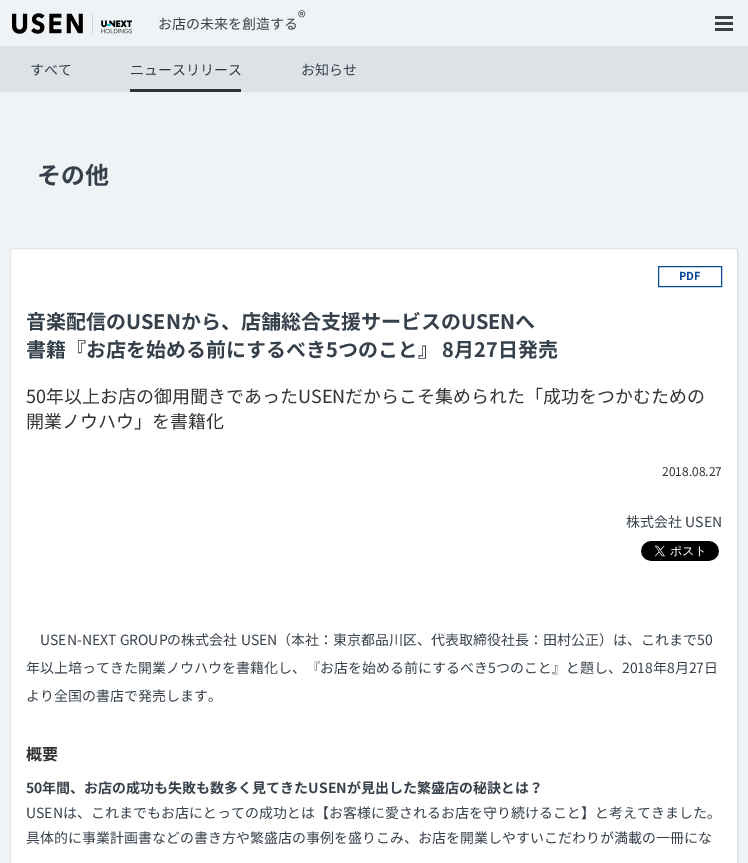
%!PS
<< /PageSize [748 863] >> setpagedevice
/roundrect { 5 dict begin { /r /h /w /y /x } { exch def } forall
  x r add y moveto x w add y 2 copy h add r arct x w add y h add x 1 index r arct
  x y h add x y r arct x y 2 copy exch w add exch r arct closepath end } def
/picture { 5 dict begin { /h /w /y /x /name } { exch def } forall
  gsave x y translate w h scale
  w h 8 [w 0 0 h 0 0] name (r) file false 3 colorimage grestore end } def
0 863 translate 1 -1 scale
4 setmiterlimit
0.941 0.953 0.961 setrgbcolor
0 0 748 863 rectfill
(img1.rgb) 12 13 120 21 picture
/NotoSansJP-Regular [16 0 0 -16 0 0] selectfont
0.212 0.251 0.294 setrgbcolor
298 23 moveto (®) show
/NotoSansJP-Regular [14 0 0 -14 0 0] selectfont
158 29 moveto (お店の未来を創造する) show
0.231 0.251 0.263 setrgbcolor
715 16 18 3 rectfill
715 22 18 3 rectfill
715 28 18 3 rectfill
0.867 0.886 0.906 setrgbcolor
0 46 748 46 rectfill
0.212 0.251 0.294 setrgbcolor
30 75 moveto (すべて) show
0.2 setgray
130 75 moveto (ニュースリリース) show
130 89 111 3 rectfill
0.212 0.251 0.294 setrgbcolor
301 75 moveto (お知らせ) show
/NotoSansJP-Bold [24 0 0 -24 0 0] selectfont
37 184 moveto (その他) show
1 setgray
10 248 728 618 3 roundrect fill
0.847 0.855 0.863 setrgbcolor
newpath 737 249 moveto 737.5 251 lineto 737.5 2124 lineto 737 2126 lineto 735 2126.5 lineto 13 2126.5 lineto 11 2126 lineto stroke
0.898 setgray
newpath 11 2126 moveto 10.5 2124 lineto 10.5 251 lineto 11 249 lineto 13 248.5 lineto 735 248.5 lineto 737 249 lineto stroke
0.031 0.298 0.588 setrgbcolor
658.5 266.5 63 20 rectstroke
/NotoSansJP-Bold [11 0 0 -11 0 0] selectfont
679 280 moveto (PDF) show
/NotoSansJP-Bold [20 0 0 -20 0 0] selectfont
0.212 0.251 0.294 setrgbcolor
26 329 moveto (音楽配信のUSENから、店舗総合支援サービスのUSENへ) show
26 357 moveto (書籍『お店を始める前にするべき5つのこと』 8月27日発売) show
/NotoSansJP-Regular [18 0 0 -18 0 0] selectfont
0.2 setgray
26 403 moveto (50年以上お店の御用聞きであったUSENだからこそ集められた「成功をつかむための) show
26 428 moveto (開業ノウハウ」を書籍化) show
/NotoSansJP-Regular [12 0 0 -12 0 0] selectfont
662 476 moveto (2018.08.27) show
/NotoSansJP-Regular [14 0 0 -14 0 0] selectfont
0.212 0.251 0.294 setrgbcolor
626 527 moveto (株式会社 USEN) show
(img2.rgb) 641 541 78 20 picture
40 645 moveto (USEN-NEXT GROUPの株式会社 USEN（本社：東京都品川区、代表取締役社長：田村公正）は、これまで50) show
26 673 moveto (年以上培ってきた開業ノウハウを書籍化し、『お店を始める前にするべき5つのこと』と題し、2018年8月27日) show
26 701 moveto (より全国の書店で発売します。) show
/NotoSansJP-Bold [16 0 0 -16 0 0] selectfont
0.2 setgray
26 760 moveto (概要) show
/NotoSansJP-Bold [14 0 0 -14 0 0] selectfont
0.212 0.251 0.294 setrgbcolor
26 793 moveto (50年間、お店の成功も失敗も数多く見てきたUSENが見出した繁盛店の秘訣とは？) show
/NotoSansJP-Regular [14 0 0 -14 0 0] selectfont
26 818 moveto (USENは、これまでもお店にとっての成功とは【お客様に愛されるお店を守り続けること】と考えてきました。) show
26 843 moveto (具体的に事業計画書などの書き方や繁盛店の事例を盛りこみ、お店を開業しやすいこだわりが満載の一冊にな) show
showpage
